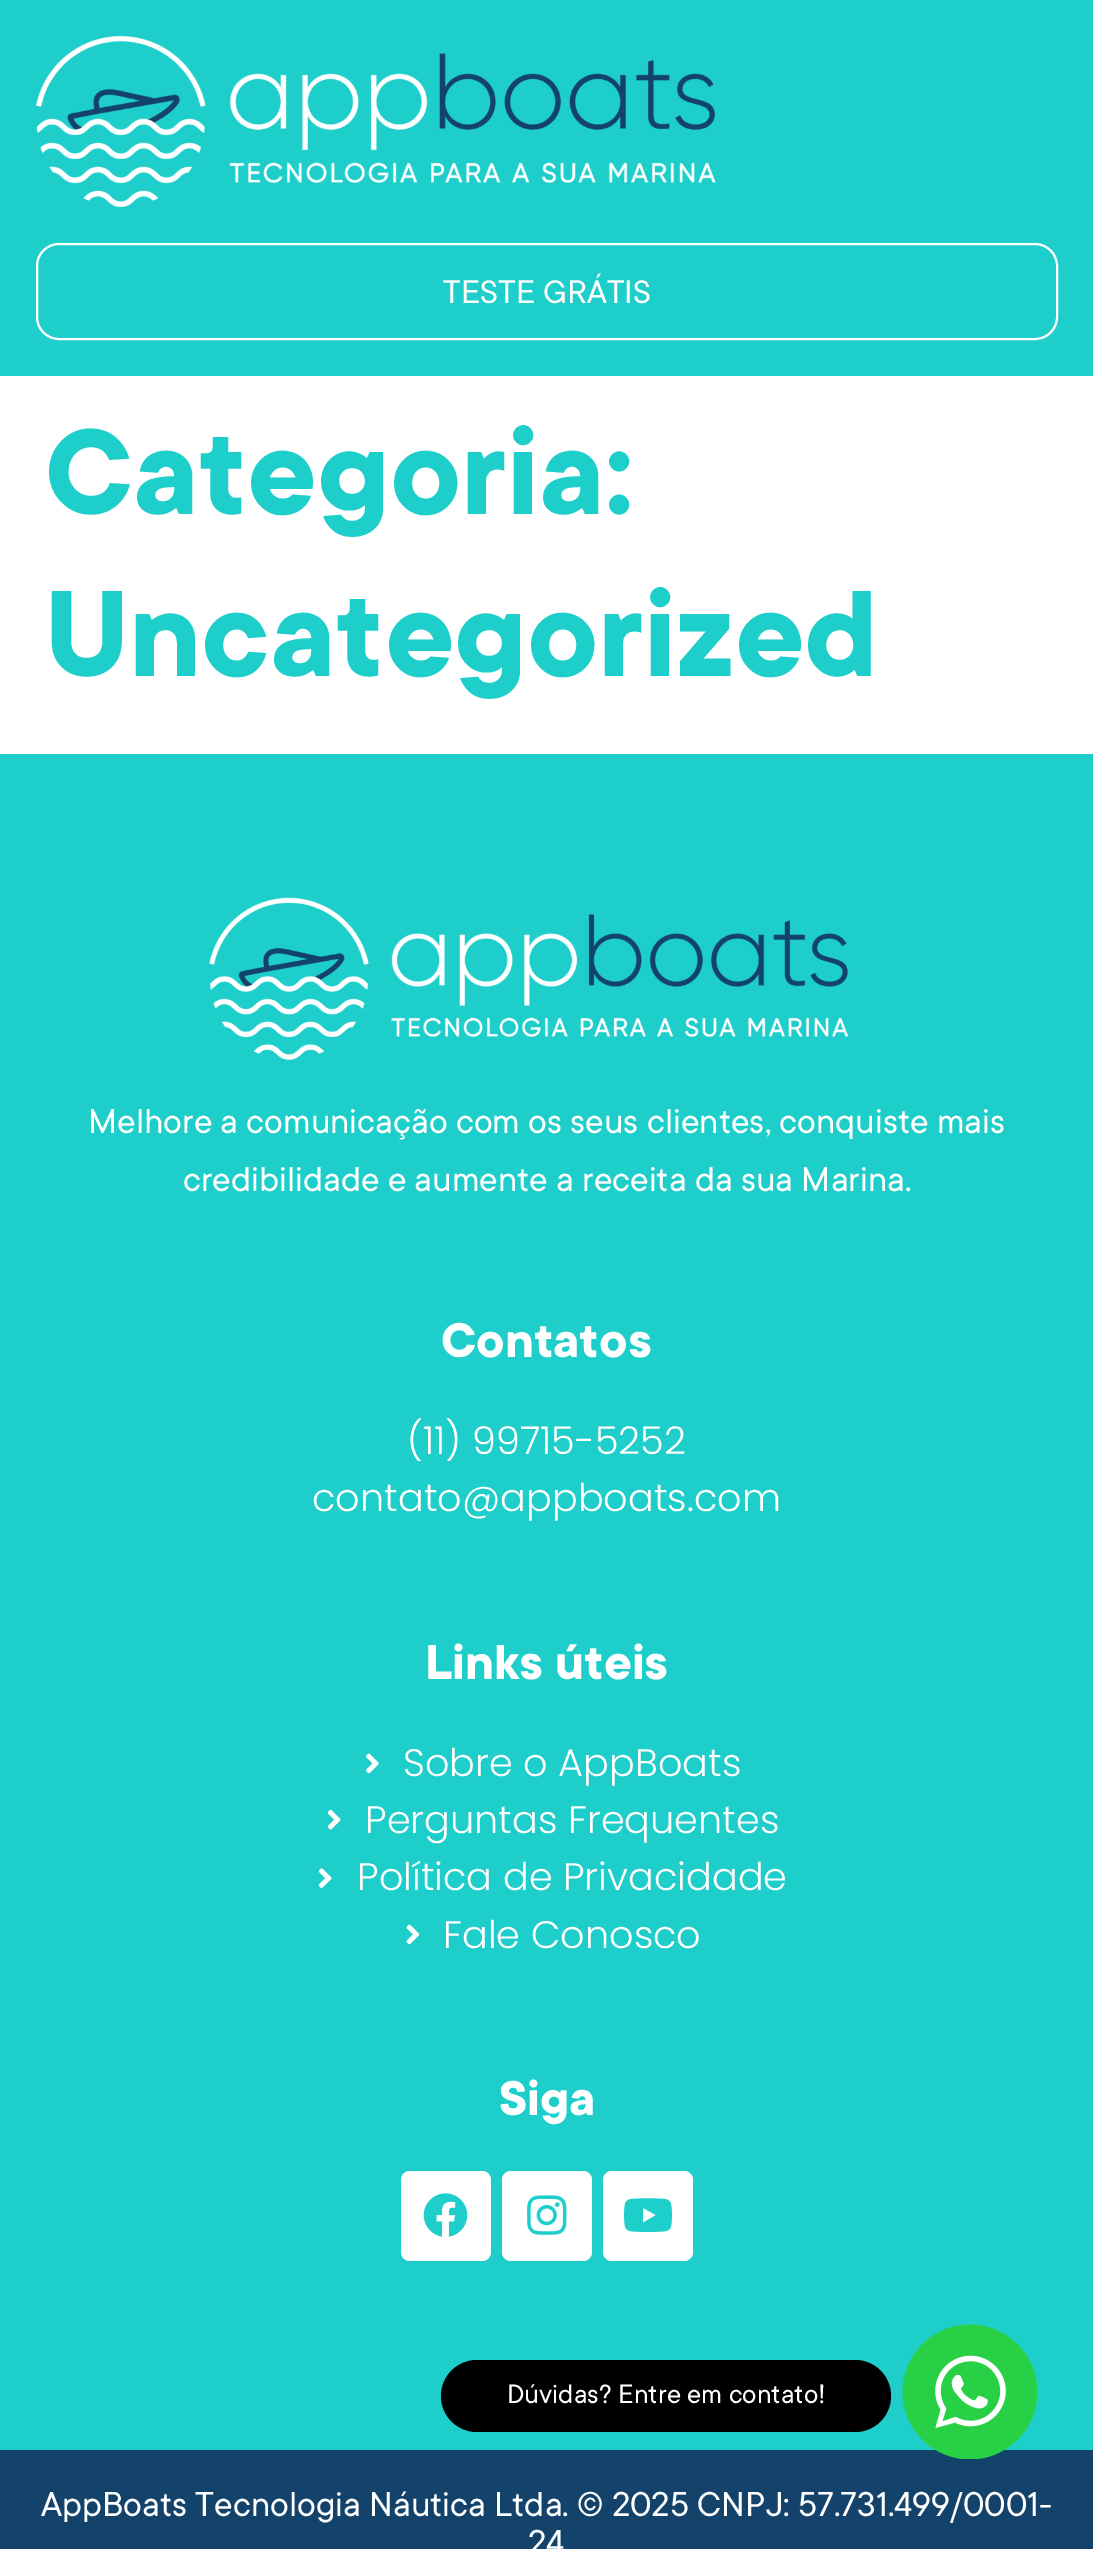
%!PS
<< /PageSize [1093 2549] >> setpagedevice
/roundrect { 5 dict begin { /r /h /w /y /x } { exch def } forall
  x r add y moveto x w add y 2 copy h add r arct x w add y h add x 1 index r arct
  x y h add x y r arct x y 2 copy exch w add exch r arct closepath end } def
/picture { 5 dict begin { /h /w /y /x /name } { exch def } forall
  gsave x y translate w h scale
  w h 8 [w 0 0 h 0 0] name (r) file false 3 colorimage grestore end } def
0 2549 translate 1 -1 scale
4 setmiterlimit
1 setgray
0 0 1093 2549 rectfill
0.118 0.808 0.792 setrgbcolor
0 0 1093 376 rectfill
(img1.rgb) 36 36 680 171 picture
1 setgray
2 setlinewidth
37 244 1020 95 22 roundrect stroke
/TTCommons-Regular [36 0 0 -36 0 0] selectfont
443 303 moveto (TESTE GRÁTIS) show
/TTCommons-Bold [135 0 0 -135 0 0] selectfont
0.118 0.808 0.792 setrgbcolor
45 514 moveto (Categoria:) show
45 676 moveto (Uncategorized) show
0 754 1093 1696 rectfill
(img2.rgb) 209 897 640 163 picture
/TTCommons-Regular [38.25 0 0 -38.25 0 0] selectfont
1 setgray
88 1133 moveto (Melhore a comunicação com os seus clientes, conquiste mais) show
183 1191 moveto (credibilidade e aumente a receita da sua Marina.) show
/TTCommons-Bold [54 0 0 -54 0 0] selectfont
441 1357 moveto (Contatos) show
/Poppins-Light [38.25 0 0 -38.25 0 0] selectfont
407 1454 moveto (\(11\) 99715-5252) show
312 1511 moveto (contato@appboats.com) show
/TTCommons-Bold [54 0 0 -54 0 0] selectfont
425 1679 moveto (Links úteis) show
(img3.rgb) 366 1753 13 21 picture
/Poppins-Light [38.25 0 0 -38.25 0 0] selectfont
403 1776 moveto (Sobre o AppBoats) show
(img4.rgb) 327 1809 14 21 picture
365 1833 moveto (Perguntas Frequentes) show
(img5.rgb) 318 1868 14 20 picture
357 1890 moveto (Política de Privacidade) show
(img6.rgb) 406 1924 14 21 picture
443 1948 moveto (Fale Conosco) show
/TTCommons-Bold [54 0 0 -54 0 0] selectfont
499 2115 moveto (Siga) show
401 2171 90 90 9 roundrect fill
(img7.rgb) 423 2193 45 44 picture
502 2171 90 90 9 roundrect fill
(img8.rgb) 527 2195 40 40 picture
603 2171 90 90 9 roundrect fill
(img9.rgb) 624 2198 48 34 picture
0 setgray
441 2360 450 72 36 roundrect fill
/TTCommons-Regular [29.25 0 0 -29.25 0 0] selectfont
1 setgray
507 2403 moveto (Dúvidas? Entre em contato!) show
0.075 0.259 0.42 setrgbcolor
0 2450 1093 99 rectfill
(img10.rgb) 902 2324 135 135 picture
/TTCommons-Regular [38.25 0 0 -38.25 0 0] selectfont
1 setgray
41 2516 moveto (AppBoats Tecnologia Náutica Ltda. © 2025 CNPJ: 57.731.499/0001-) show
528 2554 moveto (24) show
showpage
